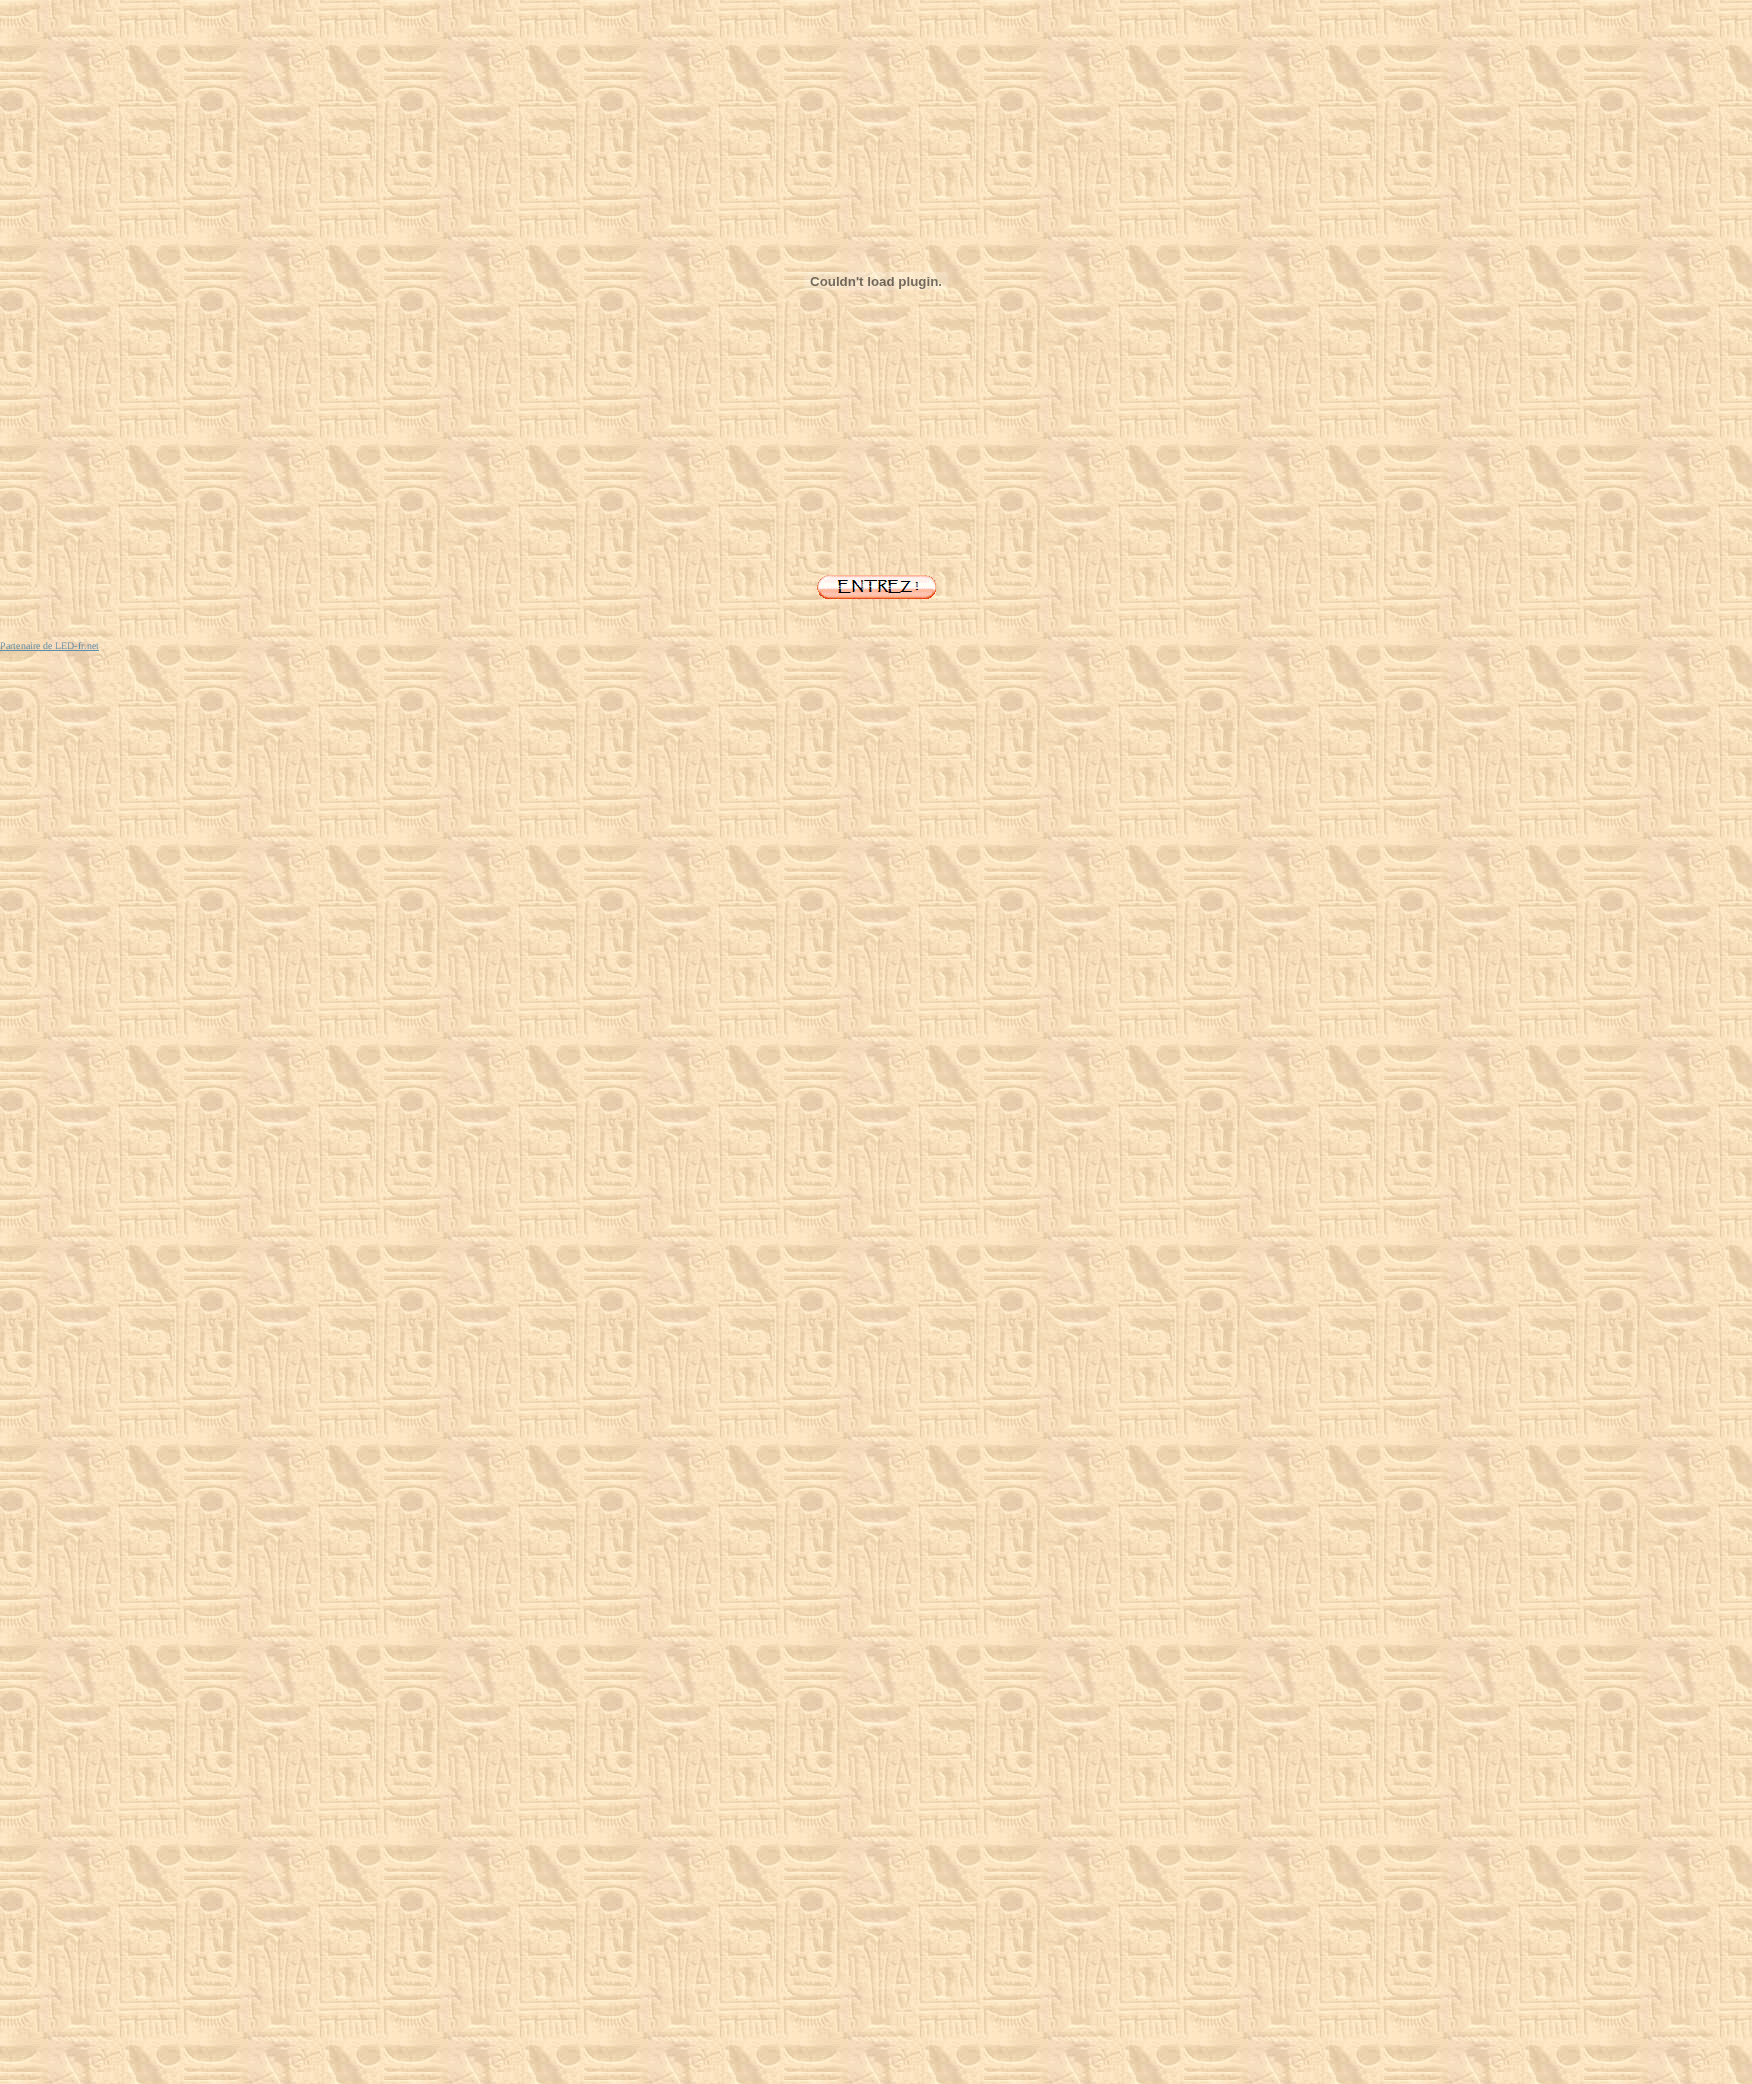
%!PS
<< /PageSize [1752 2084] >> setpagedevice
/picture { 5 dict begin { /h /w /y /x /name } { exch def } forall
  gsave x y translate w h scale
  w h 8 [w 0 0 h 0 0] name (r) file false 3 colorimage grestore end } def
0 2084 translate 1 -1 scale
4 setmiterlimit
1 setgray
0 0 1752 2084 rectfill
(img1.rgb) 0 0 1752 2084 picture
(img2.rgb) 804 272 144 18 picture
(img3.rgb) 817 575 119 24 picture
/LiberationSerif-Regular [10 0 0 -10 0 0] selectfont
0.373 0.557 0.663 setrgbcolor
0 649 moveto (Partenaire de LED-fr.net) show
0 650 99 1 rectfill
showpage
